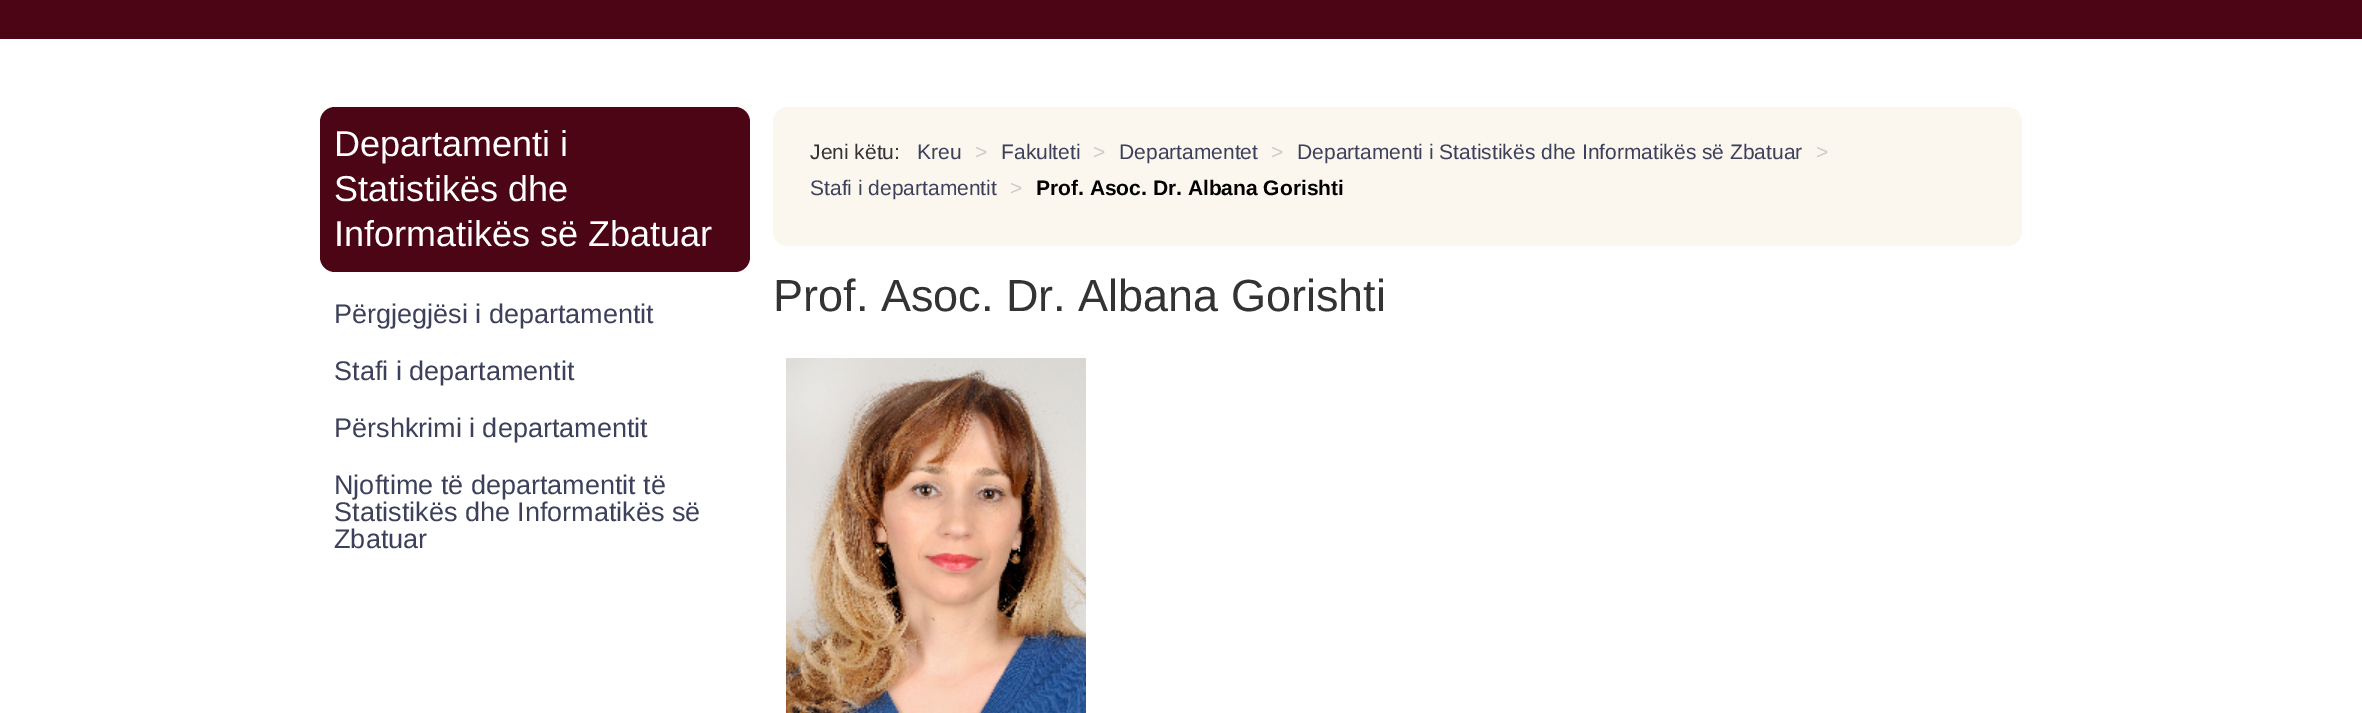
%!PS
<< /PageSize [2362 713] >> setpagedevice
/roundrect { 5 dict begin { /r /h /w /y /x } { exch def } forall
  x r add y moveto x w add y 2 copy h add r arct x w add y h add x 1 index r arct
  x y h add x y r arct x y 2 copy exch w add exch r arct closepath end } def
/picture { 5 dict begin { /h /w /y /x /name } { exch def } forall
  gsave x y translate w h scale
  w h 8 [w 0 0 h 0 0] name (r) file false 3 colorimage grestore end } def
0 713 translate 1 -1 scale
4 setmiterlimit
1 setgray
0 0 2362 713 rectfill
0.298 0.02 0.078 setrgbcolor
0 0 2362 39 rectfill
320 107 430 165 15 roundrect fill
/LiberationSans-Regular [36 0 0 -36 0 0] selectfont
1 setgray
334 156 moveto (Departamenti i) show
334 201 moveto (Statistikës dhe) show
334 246 moveto (Informatikës së Zbatuar) show
/LiberationSans-Regular [27 0 0 -27 0 0] selectfont
0.239 0.251 0.357 setrgbcolor
334 323 moveto (Përgjegjësi i departamentit) show
334 380 moveto (Stafi i departamentit) show
334 437 moveto (Përshkrimi i departamentit) show
334 494 moveto (Njoftime të departamentit të) show
334 521 moveto (Statistikës dhe Informatikës së) show
334 548 moveto (Zbatuar) show
0.988 0.969 0.933 setrgbcolor
773 107 1249 139 15 roundrect fill
/LiberationSans-Regular [21 0 0 -21 0 0] selectfont
0.2 setgray
810 159 moveto (Jeni këtu:) show
0.239 0.251 0.357 setrgbcolor
917 159 moveto (Kreu) show
0.8 setgray
975 159 moveto (>) show
0.239 0.251 0.357 setrgbcolor
1001 159 moveto (Fakulteti) show
0.8 setgray
1093 159 moveto (>) show
0.239 0.251 0.357 setrgbcolor
1119 159 moveto (Departamentet) show
0.8 setgray
1271 159 moveto (>) show
0.239 0.251 0.357 setrgbcolor
1297 159 moveto (Departamenti i Statistikës dhe Informatikës së Zbatuar) show
0.8 setgray
1816 159 moveto (>) show
0.239 0.251 0.357 setrgbcolor
810 195 moveto (Stafi i departamentit) show
0.8 setgray
1010 195 moveto (>) show
/LiberationSans-Bold [21 0 0 -21 0 0] selectfont
0 setgray
1036 195 moveto (Prof. Asoc. Dr. Albana Gorishti) show
/LiberationSans-Regular [45 0 0 -45 0 0] selectfont
0.2 setgray
773 311 moveto (Prof. Asoc. Dr. Albana Gorishti) show
(img1.rgb) 786 358 300 355 picture
showpage
